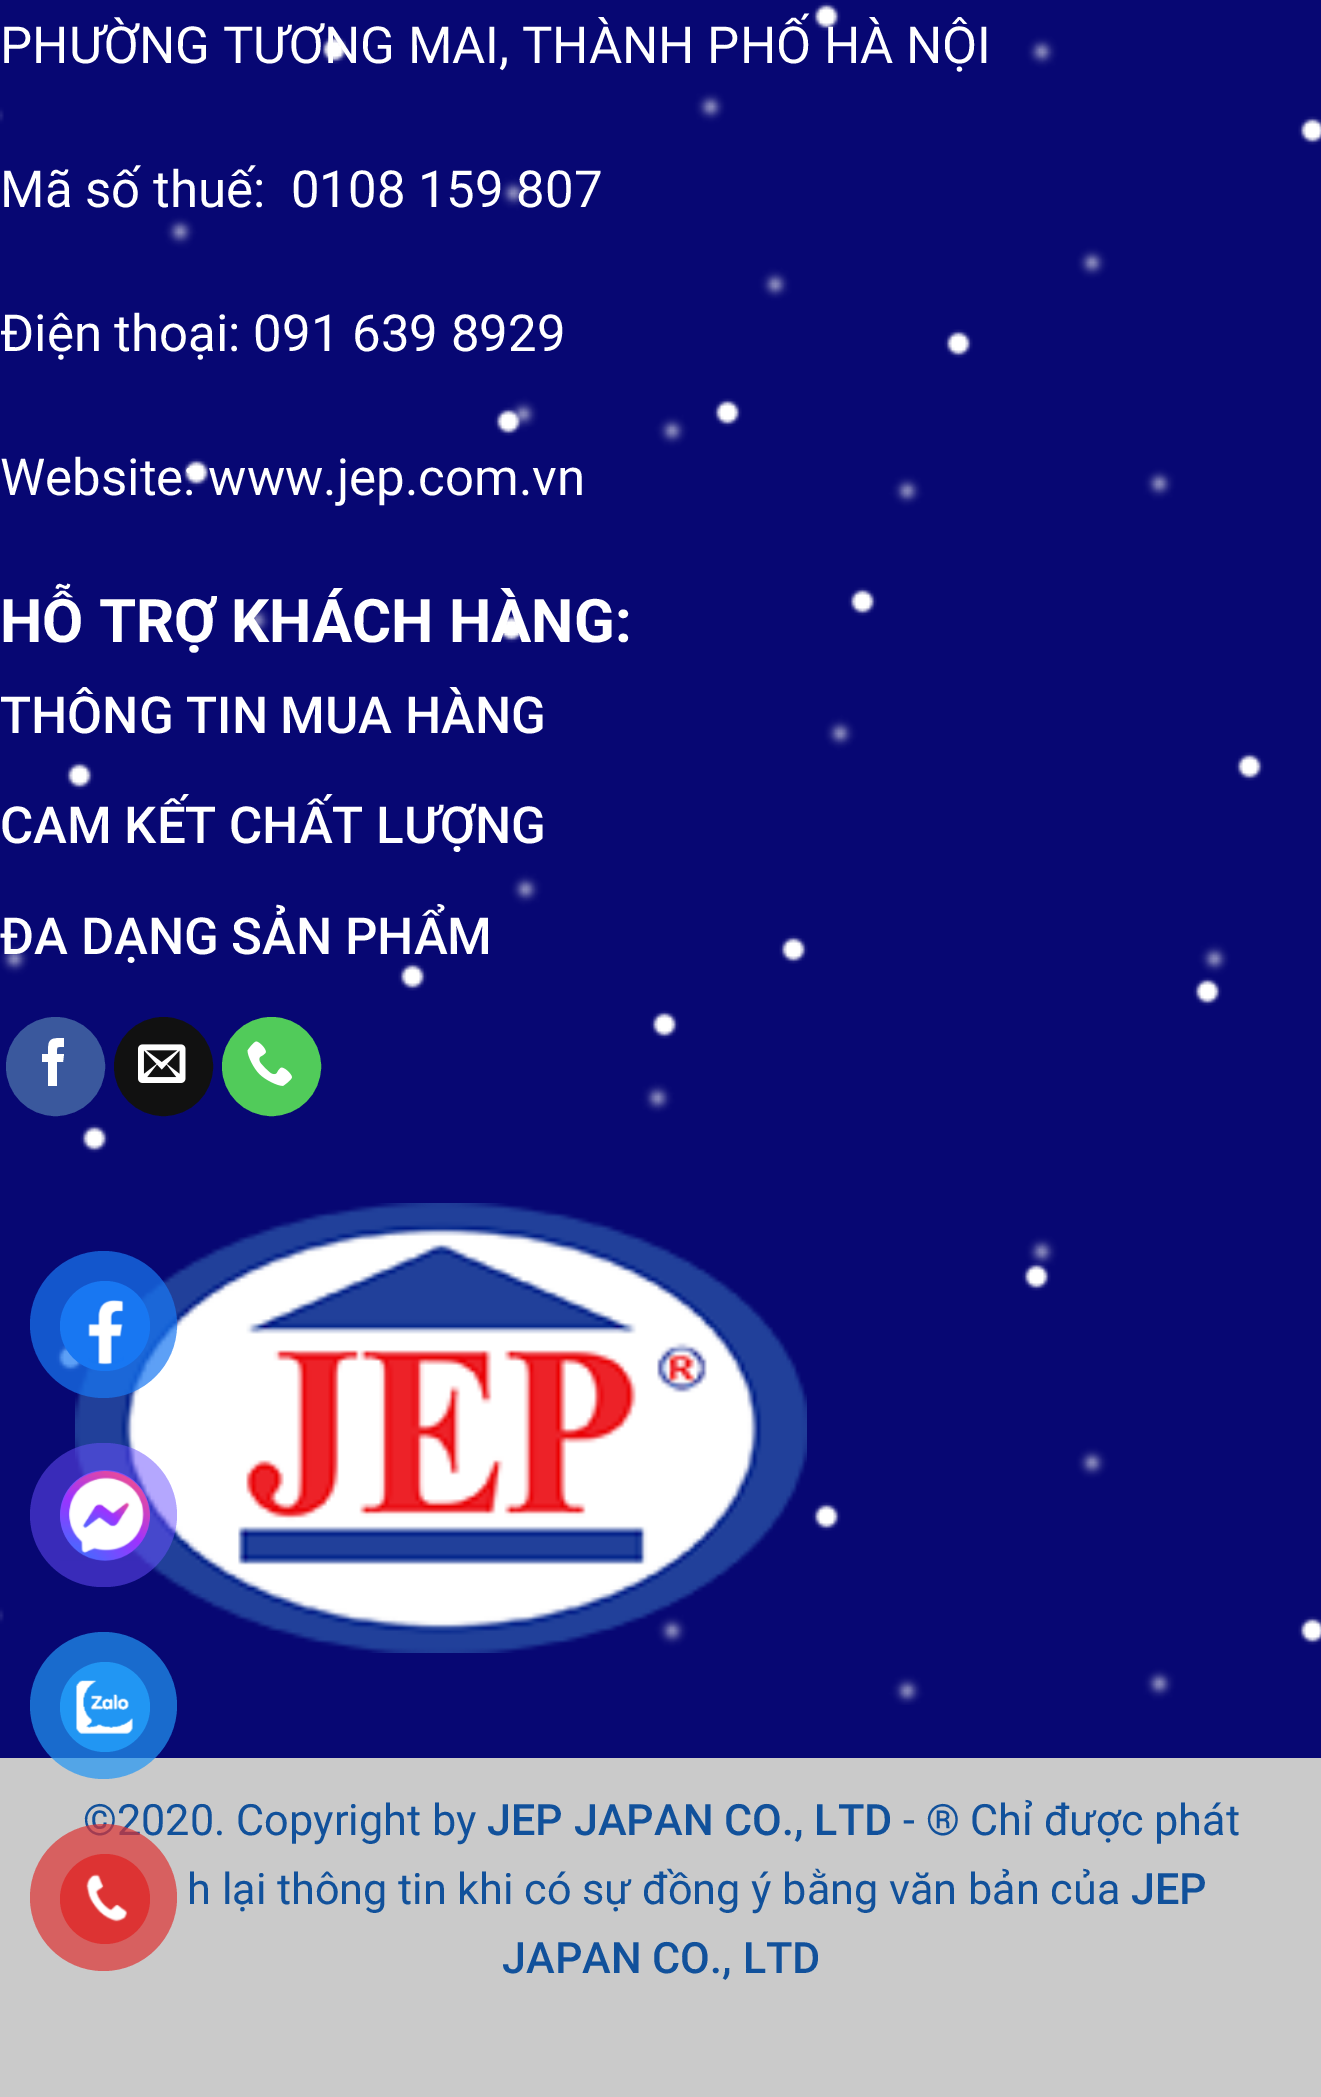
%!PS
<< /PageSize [1321 2097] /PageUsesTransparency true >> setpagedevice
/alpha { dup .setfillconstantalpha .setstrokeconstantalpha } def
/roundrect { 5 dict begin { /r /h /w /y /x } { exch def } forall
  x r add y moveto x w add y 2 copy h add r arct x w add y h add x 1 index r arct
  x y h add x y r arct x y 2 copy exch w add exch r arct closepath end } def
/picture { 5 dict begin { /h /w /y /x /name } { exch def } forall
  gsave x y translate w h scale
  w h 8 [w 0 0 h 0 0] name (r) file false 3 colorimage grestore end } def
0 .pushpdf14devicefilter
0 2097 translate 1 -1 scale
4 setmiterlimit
0.792 setgray
0 0 1321 2097 rectfill
0.027 0.027 0.451 setrgbcolor
0 0 1321 1758 rectfill
(img1.rgb) 0 2 1321 1703 picture
/Roboto-Regular [51 0 0 -51 0 0] selectfont
1 setgray
0 63 moveto (PHƯỜNG TƯƠNG MAI, THÀNH PHỐ HÀ NỘI) show
0 207 moveto (Mã số thuế:  0108 159 807) show
0 351 moveto (Điện thoại: 091 639 8929) show
0 495 moveto (Website: www.jep.com.vn) show
/Roboto-Bold [60 0 0 -60 0 0] selectfont
0 642 moveto (HỖ TRỢ KHÁCH HÀNG:) show
/Roboto-Medium [51 0 0 -51 0 0] selectfont
0 733 moveto (THÔNG TIN MUA HÀNG) show
0 843 moveto (CAM KẾT CHẤT LƯỢNG) show
0 954 moveto (ĐA DẠNG SẢN PHẨM) show
0.227 0.345 0.616 setrgbcolor
newpath 55.5 1066.5 48 0 360 arc closepath gsave fill grestore
3 setlinewidth
stroke
1 setgray
newpath 57 1086 moveto 48 1086 lineto 48 1062 lineto 42 1062 lineto 42 1054 lineto 48 1054 lineto 48 1039 49 1038 64 1038 curveto 64 1047 lineto 56 1047 57 1046 57 1054 curveto 64 1054 lineto 63 1062 lineto 57 1062 lineto closepath fill
0.067 setgray
newpath 163.5 1066.5 48 0 360 arc closepath gsave fill grestore
stroke
(img2.rgb) 138 1044 48 39 picture
0.318 0.796 0.353 setrgbcolor
newpath 271.5 1066.5 48 0 360 arc closepath gsave fill grestore
stroke
(img3.rgb) 247 1041 45 45 picture
(img4.rgb) 75 1203 732 450 picture
/Roboto-Regular [43.2 0 0 -43.2 0 0] selectfont
0.067 0.318 0.608 setrgbcolor
83 1835 moveto (©2020. Copyright by) show
/Roboto-Medium [43.2 0 0 -43.2 0 0] selectfont
487 1835 moveto (JEP JAPAN CO., LTD) show
/Roboto-Regular [43.2 0 0 -43.2 0 0] selectfont
903 1835 moveto (- ® Chỉ được phát) show
187 1904 moveto (h lại thông tin khi có sự đồng ý bằng văn bản của) show
/Roboto-Medium [43.2 0 0 -43.2 0 0] selectfont
1131 1904 moveto (JEP) show
502 1973 moveto (JAPAN CO., LTD) show
0.7 alpha
0.094 0.467 0.949 setrgbcolor
newpath 103.5 1324.5 73.5 0 360 arc closepath fill
1 alpha
newpath 105 1326 45 0 360 arc closepath fill
(img5.rgb) 88 1300 36 65 picture
0.5 alpha
0.416 0.31 0.996 setrgbcolor
30 1443 147 144 72 roundrect fill
1 alpha
newpath 105 1515 45 0 360 arc closepath fill
(img6.rgb) 60 1470 90 91 picture
0.7 alpha
0.129 0.588 0.953 setrgbcolor
newpath 103.5 1705.5 73.5 0 360 arc closepath fill
1 alpha
newpath 105 1707 45 0 360 arc closepath fill
(img7.rgb) 76 1680 57 54 picture
0.7 alpha
0.867 0.2 0.2 setrgbcolor
newpath 103.5 1897.5 73.5 0 360 arc closepath fill
1 alpha
newpath 105 1899 45 0 360 arc closepath fill
(img8.rgb) 86 1874 42 48 picture
.poppdf14devicefilter showpage
